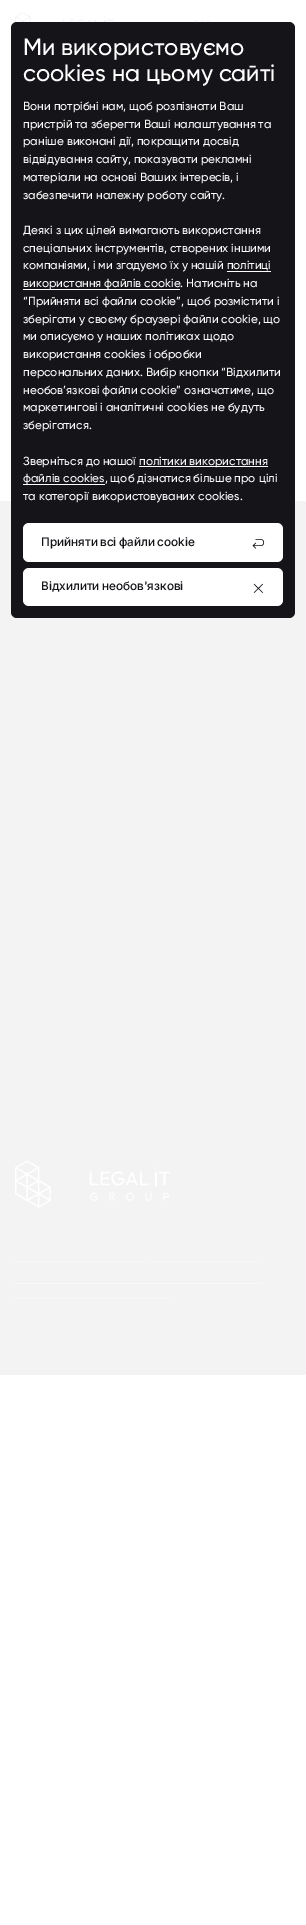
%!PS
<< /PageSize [306 1925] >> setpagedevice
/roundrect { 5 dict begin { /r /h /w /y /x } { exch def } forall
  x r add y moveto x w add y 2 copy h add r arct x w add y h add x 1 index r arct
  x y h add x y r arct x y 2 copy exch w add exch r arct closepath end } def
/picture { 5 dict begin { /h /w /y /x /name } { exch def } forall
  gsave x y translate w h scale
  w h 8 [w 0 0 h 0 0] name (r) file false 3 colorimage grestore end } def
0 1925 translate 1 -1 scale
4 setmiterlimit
1 setgray
0 0 306 1925 rectfill
(img1.rgb) 15 12 99 11 picture
0.976 setgray
195 20 3 2 rectfill
201 20 3 2 rectfill
0.992 0.961 0.965 setrgbcolor
207 20 3 2 rectfill
0.953 0.953 0.957 setrgbcolor
0 501 306 874 rectfill
0.082 0.078 0.098 setrgbcolor
11 22 284 596 6 roundrect fill
/Gilroy-Medium [23.6 0 0 -23.6 0 0] selectfont
1 setgray
23 55 moveto (Ми використовуємо) show
23 81 moveto (cookies на цьому сайті) show
/Gilroy-Medium [11.8 0 0 -11.8 0 0] selectfont
23 110 moveto (Вони потрібні нам, щоб розпізнати Ваш) show
23 128 moveto (пристрій та зберегти Ваші налаштування та) show
23 145 moveto (раніше виконані дії, покращити досвід) show
23 163 moveto (відвідування сайту, показувати рекламні) show
23 181 moveto (матеріали на основі Ваших інтересів, і) show
23 199 moveto (забезпечити належну роботу сайту.) show
23 234 moveto (Деякі з цих цілей вимагають використання) show
23 252 moveto (спеціальних інструментів, створених іншими) show
23 269 moveto (компаніями, і ми згадуємо їх у нашій політиці) show
23 289 157 1 rectfill
23 287 moveto (використання файлів cookie. Натисніть на) show
227 271 44 1 rectfill
23 305 moveto (“Прийняти всі файли cookie”, щоб розмістити і) show
23 323 moveto (зберігати у своєму браузері файли cookie, що) show
23 340 moveto (ми описуємо у наших політиках щодо) show
23 358 moveto (використання cookies і обробки) show
23 376 moveto (персональних даних. Вибір кнопки “Відхилити) show
23 394 moveto (необов’язкові файли cookie” означатиме, що) show
23 411 moveto (маркетингові і аналітичні cookies не будуть) show
23 429 moveto (зберігатися.) show
23 465 moveto (Зверніться до нашої) show
139 466 129 1 rectfill
139 465 moveto (політики використання) show
23 484 82 1 rectfill
23 482 moveto (файлів cookies, щоб дізнатися більше про цілі) show
23 500 moveto (та категорії використовуваних cookies.) show
23 523 260 39 6 roundrect fill
/Inter-Medium [11.8 0 0 -11.8 0 0] selectfont
0.082 0.078 0.098 setrgbcolor
41 546 moveto -1 0 32 (Прийняти всі файли cookie) widthshow
(img2.rgb) 252 539 13 10 picture
1 setgray
23 568 260 38 6 roundrect fill
0.082 0.078 0.098 setrgbcolor
41 590 moveto -1 0 32 (Відхилити необов'язкові) widthshow
(img3.rgb) 253 583 10 10 picture
(img4.rgb) 15 1160 155 48 picture
0.973 setgray
15 1261 132 1 rectfill
153 1261 106 1 rectfill
15 1283 247 1 rectfill
15 1298 154 1 rectfill
showpage
